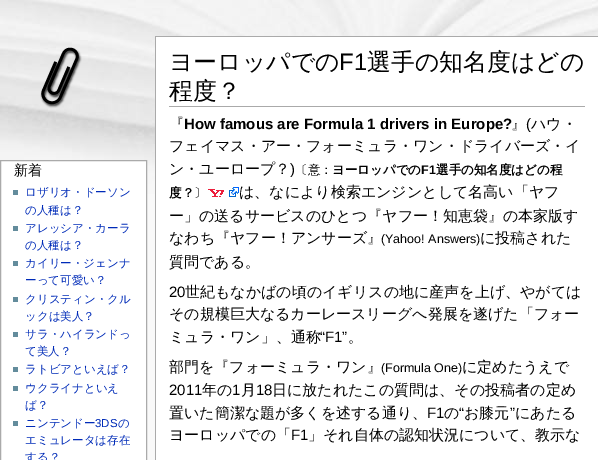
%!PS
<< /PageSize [598 460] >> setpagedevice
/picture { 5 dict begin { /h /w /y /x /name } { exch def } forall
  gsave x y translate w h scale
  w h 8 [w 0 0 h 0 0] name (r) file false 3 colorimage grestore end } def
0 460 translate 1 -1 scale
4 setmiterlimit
0.976 setgray
0 0 598 460 rectfill
(img1.rgb) 0 0 598 194 picture
(img2.rgb) 40 47 42 61 picture
1 setgray
newpath 0.5 160.5 moveto 146.5 160.5 lineto 146.5 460.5 lineto 0.5 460.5 lineto closepath gsave fill grestore
0.667 setgray
stroke
/WenQuanYiZenHei-Medium [14 0 0 -14 0 0] selectfont
0 setgray
14 175 moveto (新着) show
0.388 0.549 0.612 setrgbcolor
13 190 5 5 rectfill
/WenQuanYiZenHei-Medium [11.5 0 0 -11.5 0 0] selectfont
0 0.169 0.722 setrgbcolor
25 196 moveto (ロザリオ・ドーソン) show
25 214 moveto (の人種は？) show
0.388 0.549 0.612 setrgbcolor
13 226 5 5 rectfill
0 0.169 0.722 setrgbcolor
25 232 moveto (アレッシア・カーラ) show
25 249 moveto (の人種は？) show
0.388 0.549 0.612 setrgbcolor
13 261 5 5 rectfill
0 0.169 0.722 setrgbcolor
25 267 moveto (カイリー・ジェンナ) show
25 284 moveto (ーって可愛い？) show
0.388 0.549 0.612 setrgbcolor
13 297 5 5 rectfill
0 0.169 0.722 setrgbcolor
25 303 moveto (クリスティン・クル) show
25 320 moveto (ックは美人？) show
0.388 0.549 0.612 setrgbcolor
13 332 5 5 rectfill
0 0.169 0.722 setrgbcolor
25 338 moveto (サラ・ハイランドっ) show
25 355 moveto (て美人？) show
0.388 0.549 0.612 setrgbcolor
13 367 5 5 rectfill
0 0.169 0.722 setrgbcolor
25 373 moveto (ラトビアといえば？) show
0.388 0.549 0.612 setrgbcolor
13 386 5 5 rectfill
0 0.169 0.722 setrgbcolor
25 392 moveto (ウクライナといえ) show
25 409 moveto (ば？) show
0.388 0.549 0.612 setrgbcolor
13 421 5 5 rectfill
0 0.169 0.722 setrgbcolor
25 427 moveto (ニンテンドー) show
/LiberationSans-Regular [11.5 0 0 -11.5 0 0] selectfont
95 427 moveto (3DS) show
/WenQuanYiZenHei-Medium [11.5 0 0 -11.5 0 0] selectfont
118 427 moveto (の) show
25 444 moveto (エミュレータは存在) show
25 461 moveto (する？) show
1 setgray
156 37 442 423 rectfill
0.667 setgray
155 36 443 1 rectfill
155 36 1 424 rectfill
169 106 416 1 rectfill
/WenQuanYiZenHei-Medium [23.9 0 0 -23.9 0 0] selectfont
0 setgray
169 70 moveto (ヨーロッパでの) show
/LiberationSans-Regular [23.9 0 0 -23.9 0 0] selectfont
339 70 moveto (F1) show
/WenQuanYiZenHei-Medium [23.9 0 0 -23.9 0 0] selectfont
367 70 moveto (選手の知名度はどの) show
169 99 moveto (程度？) show
/WenQuanYiZenHei-Medium [15 0 0 -15 0 0] selectfont
169 129 moveto (『) show
/LiberationSans-Bold [15 0 0 -15 0 0] selectfont
184 129 moveto (How famous are Formula 1 drivers in Europe?) show
/WenQuanYiZenHei-Medium [15 0 0 -15 0 0] selectfont
511 129 moveto (』) show
/LiberationSans-Regular [15 0 0 -15 0 0] selectfont
526 129 moveto (\() show
/WenQuanYiZenHei-Medium [15 0 0 -15 0 0] selectfont
531 129 moveto (ハウ・) show
169 151 moveto (フェイマス・アー・フォーミュラ・ワン・ドライバーズ・イ) show
169 174 moveto (ン・ユーロープ？) show
/LiberationSans-Regular [15 0 0 -15 0 0] selectfont
290 174 moveto (\)) show
/WenQuanYiZenHei-Medium [12.5 0 0 -12.5 0 0] selectfont
295 174 moveto (〔意：) show
/WenQuanYiZenHei-Bold [12.5 0 0 -12.5 0 0] selectfont
332 174 moveto (ヨーロッパでの) show
/LiberationSans-Bold [12.5 0 0 -12.5 0 0] selectfont
421 174 moveto (F1) show
/WenQuanYiZenHei-Bold [12.5 0 0 -12.5 0 0] selectfont
436 174 moveto (選手の知名度はどの程) show
169 197 moveto (度？) show
/WenQuanYiZenHei-Medium [12.5 0 0 -12.5 0 0] selectfont
194 197 moveto (〕) show
(img3.rgb) 208 189 16 8 picture
(img4.rgb) 229 187 10 10 picture
/WenQuanYiZenHei-Medium [15 0 0 -15 0 0] selectfont
239 197 moveto (は、なにより検索エンジンとして名高い「ヤフ) show
169 221 moveto (ー」の送るサービスのひとつ『ヤフー！知恵袋』の本家版す) show
169 243 moveto (なわち『ヤフー！アンサーズ』) show
/LiberationSans-Regular [12.5 0 0 -12.5 0 0] selectfont
381 243 moveto (\(Yahoo! Answers\)) show
/WenQuanYiZenHei-Medium [15 0 0 -15 0 0] selectfont
480 243 moveto (に投稿された) show
169 267 moveto (質問である。) show
/LiberationSans-Regular [15 0 0 -15 0 0] selectfont
169 297 moveto (20) show
/WenQuanYiZenHei-Medium [15 0 0 -15 0 0] selectfont
185 297 moveto (世紀もなかばの頃のイギリスの地に産声を上げ、やがては) show
169 319 moveto (その規模巨大なるカーレースリーグへ発展を遂げた「フォー) show
169 342 moveto (ミュラ・ワン」、通称) show
/LiberationSans-Regular [15 0 0 -15 0 0] selectfont
320 342 moveto (“F1”) show
/WenQuanYiZenHei-Medium [15 0 0 -15 0 0] selectfont
348 342 moveto (。) show
169 372 moveto (部門を『フォーミュラ・ワン』) show
/LiberationSans-Regular [12.5 0 0 -12.5 0 0] selectfont
381 372 moveto (\(Formula One\)) show
/WenQuanYiZenHei-Medium [15 0 0 -15 0 0] selectfont
462 372 moveto (に定めたうえで) show
/LiberationSans-Regular [15 0 0 -15 0 0] selectfont
169 395 moveto (2011) show
/WenQuanYiZenHei-Medium [15 0 0 -15 0 0] selectfont
202 395 moveto (年の) show
/LiberationSans-Regular [15 0 0 -15 0 0] selectfont
232 395 moveto (1) show
/WenQuanYiZenHei-Medium [15 0 0 -15 0 0] selectfont
241 395 moveto (月) show
/LiberationSans-Regular [15 0 0 -15 0 0] selectfont
256 395 moveto (18) show
/WenQuanYiZenHei-Medium [15 0 0 -15 0 0] selectfont
272 395 moveto (日に放たれたこの質問は、その投稿者の定め) show
169 418 moveto (置いた簡潔な題が多くを述する通り、) show
/LiberationSans-Regular [15 0 0 -15 0 0] selectfont
427 418 moveto (F1) show
/WenQuanYiZenHei-Medium [15 0 0 -15 0 0] selectfont
444 418 moveto (の) show
/LiberationSans-Regular [15 0 0 -15 0 0] selectfont
459 418 moveto (“) show
/WenQuanYiZenHei-Medium [15 0 0 -15 0 0] selectfont
464 418 moveto (お膝元) show
/LiberationSans-Regular [15 0 0 -15 0 0] selectfont
510 418 moveto (”) show
/WenQuanYiZenHei-Medium [15 0 0 -15 0 0] selectfont
515 418 moveto (にあたる) show
169 440 moveto (ヨーロッパでの「) show
/LiberationSans-Regular [15 0 0 -15 0 0] selectfont
291 440 moveto (F1) show
/WenQuanYiZenHei-Medium [15 0 0 -15 0 0] selectfont
308 440 moveto (」それ自体の認知状況について、教示な) show
showpage
